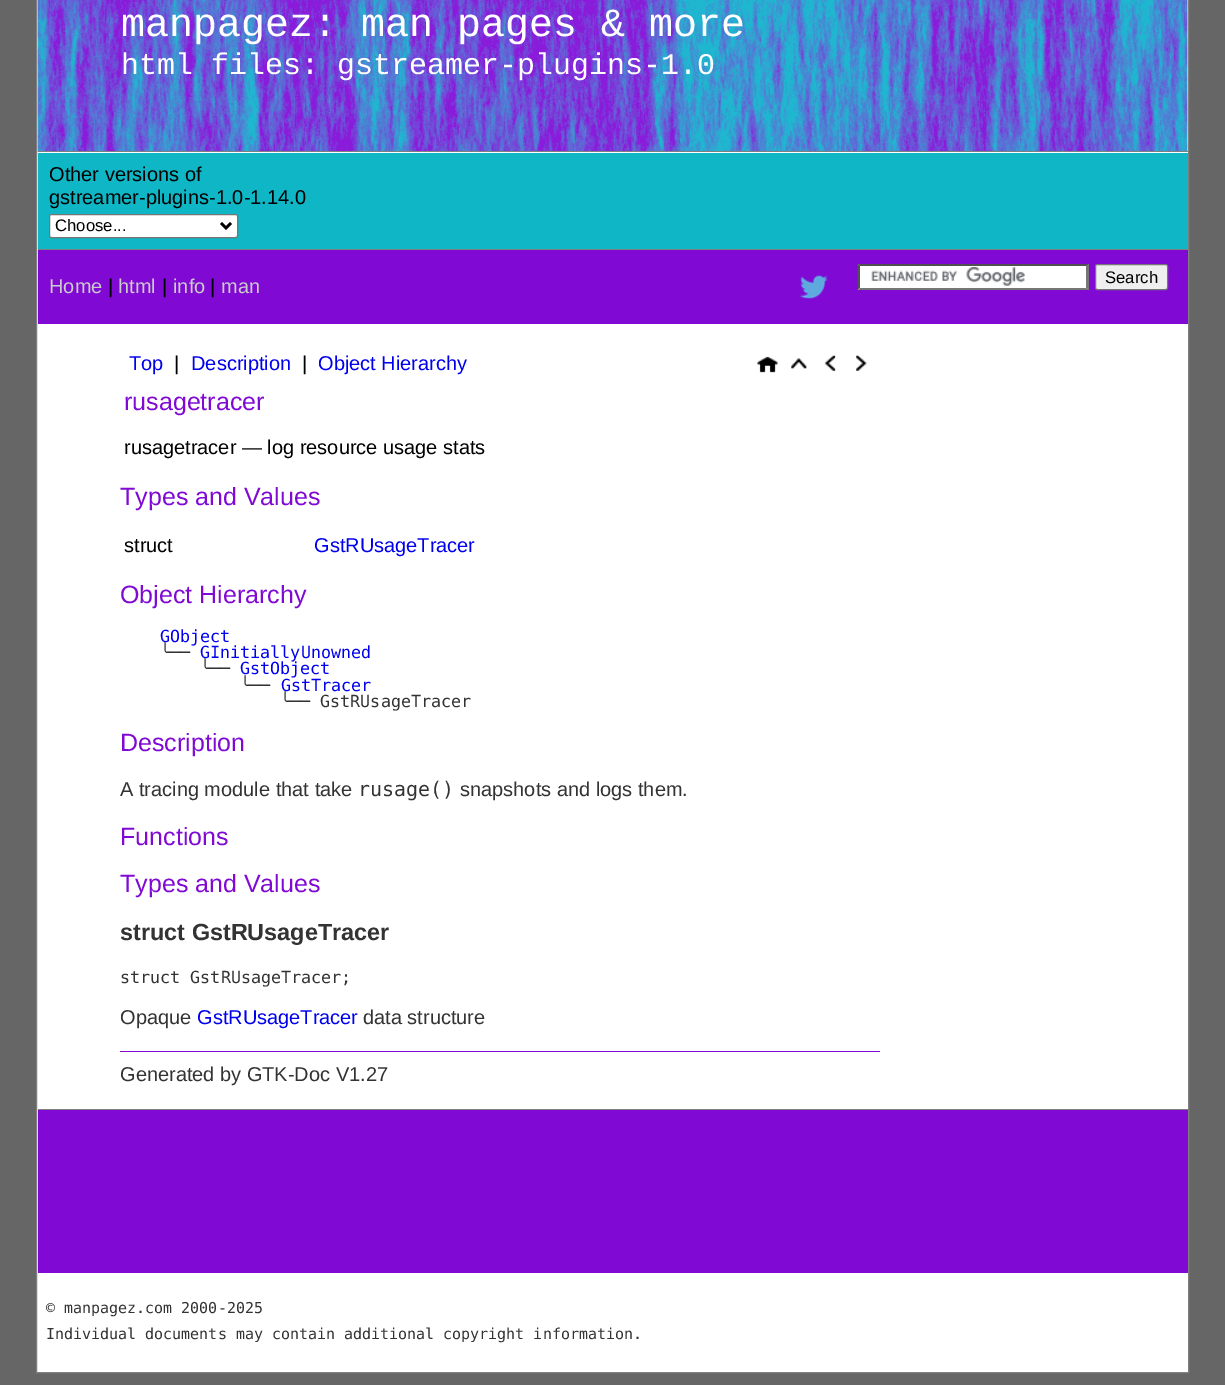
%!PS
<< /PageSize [1225 1385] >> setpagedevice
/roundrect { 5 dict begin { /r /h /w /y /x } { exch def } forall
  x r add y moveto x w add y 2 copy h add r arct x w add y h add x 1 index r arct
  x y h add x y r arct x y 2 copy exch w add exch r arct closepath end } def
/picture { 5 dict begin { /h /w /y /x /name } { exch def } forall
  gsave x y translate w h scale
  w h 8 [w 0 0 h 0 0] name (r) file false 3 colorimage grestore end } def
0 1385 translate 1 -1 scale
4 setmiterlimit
0.4 setgray
0 0 1225 1385 rectfill
1 setgray
newpath 36.5 -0.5 moveto 1188.5 -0.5 lineto 1188.5 1372.5 lineto 36.5 1372.5 lineto closepath gsave fill grestore
0.502 setgray
stroke
(img1.rgb) 37 0 1151 152 picture
38 151 1150 1 rectfill
/LiberationMono-Regular [40 0 0 -40 0 0] selectfont
1 setgray
121 36 moveto (manpagez: man pages & more) show
/LiberationMono-Regular [30 0 0 -30 0 0] selectfont
121 74 moveto (html files: gstreamer-plugins-1.0) show
0.059 0.714 0.773 setrgbcolor
38 153 1150 96 rectfill
0.502 setgray
38 249 1150 1 rectfill
/LiberationSans-Regular [20 0 0 -20 0 0] selectfont
0 setgray
49 181 moveto (Other versions of) show
49 204 moveto (gstreamer-plugins-1.0-1.14.0) show
1 setgray
49.5 214.5 188 23 2 roundrect gsave fill grestore
0.463 setgray
stroke
0 setgray
2.5 setlinewidth
newpath 221 223 moveto 226 228 lineto 231 223 lineto stroke
/LiberationSans-Regular [16.7 0 0 -16.7 0 0] selectfont
55 231 moveto (Choose...) show
0.502 0.035 0.831 setrgbcolor
38 250 1150 74 rectfill
/LiberationSans-Regular [20 0 0 -20 0 0] selectfont
0.8 setgray
49 293 moveto (Home) show
0 setgray
108 293 moveto (|) show
0.8 setgray
118 293 moveto (html) show
0 setgray
162 293 moveto (|) show
0.8 setgray
173 293 moveto (info) show
0 setgray
210 293 moveto (|) show
0.8 setgray
221 293 moveto (man) show
(img2.rgb) 800 275 28 24 picture
1 setgray
858 264 231 26 rectfill
(img3.rgb) 871 267 154 19 picture
0.31 setgray
newpath 858 264 moveto 1089 264 lineto 1086 266 lineto 860 266 lineto closepath fill
0.463 setgray
newpath 1089 264 moveto 1089 290 lineto 1086 287.5 lineto 1086 266 lineto closepath fill
newpath 1089 290 moveto 858 290 lineto 860 288 lineto 1086 288 lineto closepath fill
0.31 setgray
newpath 857.5 290 moveto 857.5 264 lineto 860 266 lineto 860 287.5 lineto closepath fill
0.937 setgray
1095.5 264.5 72 25 2 roundrect gsave fill grestore
0.463 setgray
1 setlinewidth
stroke
/LiberationSans-Regular [16.7 0 0 -16.7 0 0] selectfont
0 setgray
1105 283 moveto (Search) show
/LiberationSans-Regular [20 0 0 -20 0 0] selectfont
0 0 0.933 setrgbcolor
129 370 moveto (Top) show
0 setgray
174 370 moveto (|) show
0 0 0.933 setrgbcolor
191 370 moveto (Description) show
0 setgray
302 370 moveto (|) show
0 0 0.933 setrgbcolor
318 370 moveto (Object Hierarchy) show
(img4.rgb) 757 356 21 17 picture
(img5.rgb) 791 358 16 11 picture
(img6.rgb) 824 355 12 16 picture
(img7.rgb) 856 355 11 16 picture
/LiberationSans-Regular [25 0 0 -25 0 0] selectfont
0.502 0.035 0.831 setrgbcolor
124 410 moveto (rusagetracer) show
/LiberationSans-Regular [20 0 0 -20 0 0] selectfont
0 setgray
124 454 moveto (rusagetracer — log resource usage stats) show
/LiberationSans-Regular [25 0 0 -25 0 0] selectfont
0.502 0.035 0.831 setrgbcolor
120 505 moveto (Types and Values) show
/LiberationSans-Regular [20 0 0 -20 0 0] selectfont
0 setgray
124 552 moveto (struct) show
0 0 0.933 setrgbcolor
314 552 moveto (GstRUsageTracer) show
/LiberationSans-Regular [25 0 0 -25 0 0] selectfont
0.502 0.035 0.831 setrgbcolor
120 603 moveto (Object Hierarchy) show
/DejaVuSansMono-Regular [16.7 0 0 -16.7 0 0] selectfont
0 0 0.933 setrgbcolor
160 642 moveto (GObject) show
0.2 setgray
160 658 moveto (╰──) show
0 0 0.933 setrgbcolor
200 658 moveto (GInitiallyUnowned) show
0.2 setgray
200 674 moveto (╰──) show
0 0 0.933 setrgbcolor
240 674 moveto (GstObject) show
0.2 setgray
240 691 moveto (╰──) show
0 0 0.933 setrgbcolor
281 691 moveto (GstTracer) show
0.2 setgray
280 707 moveto (╰── GstRUsageTracer) show
/LiberationSans-Regular [25 0 0 -25 0 0] selectfont
0.502 0.035 0.831 setrgbcolor
120 751 moveto (Description) show
/LiberationSans-Regular [20 0 0 -20 0 0] selectfont
0.2 setgray
120 796 moveto (A tracing module that take) show
/DejaVuSansMono-Regular [20 0 0 -20 0 0] selectfont
358 796 moveto (rusage\(\)) show
/LiberationSans-Regular [20 0 0 -20 0 0] selectfont
460 796 moveto (snapshots and logs them.) show
/LiberationSans-Regular [25 0 0 -25 0 0] selectfont
0.502 0.035 0.831 setrgbcolor
120 845 moveto (Functions) show
120 892 moveto (Types and Values) show
/LiberationSans-Bold [23.4 0 0 -23.4 0 0] selectfont
0.2 setgray
120 940 moveto (struct GstRUsageTracer) show
/DejaVuSansMono-Regular [16.7 0 0 -16.7 0 0] selectfont
120 983 moveto (struct GstRUsageTracer;) show
/LiberationSans-Regular [20 0 0 -20 0 0] selectfont
120 1024 moveto (Opaque) show
0 0 0.933 setrgbcolor
197 1024 moveto (GstRUsageTracer) show
0.2 setgray
363 1024 moveto (data structure) show
0.502 0.035 0.831 setrgbcolor
120 1051 760 1 rectfill
0.2 setgray
120 1081 moveto (Generated by GTK-Doc V1.27) show
0.502 0.035 0.831 setrgbcolor
38 1110 1150 163 rectfill
0.502 setgray
38 1109 1150 1 rectfill
/DejaVuSansMono-Regular [15 0 0 -15 0 0] selectfont
0.2 setgray
46 1313 moveto (© manpagez.com 2000-2025) show
46 1339 moveto (Individual documents may contain additional copyright information.) show
showpage
